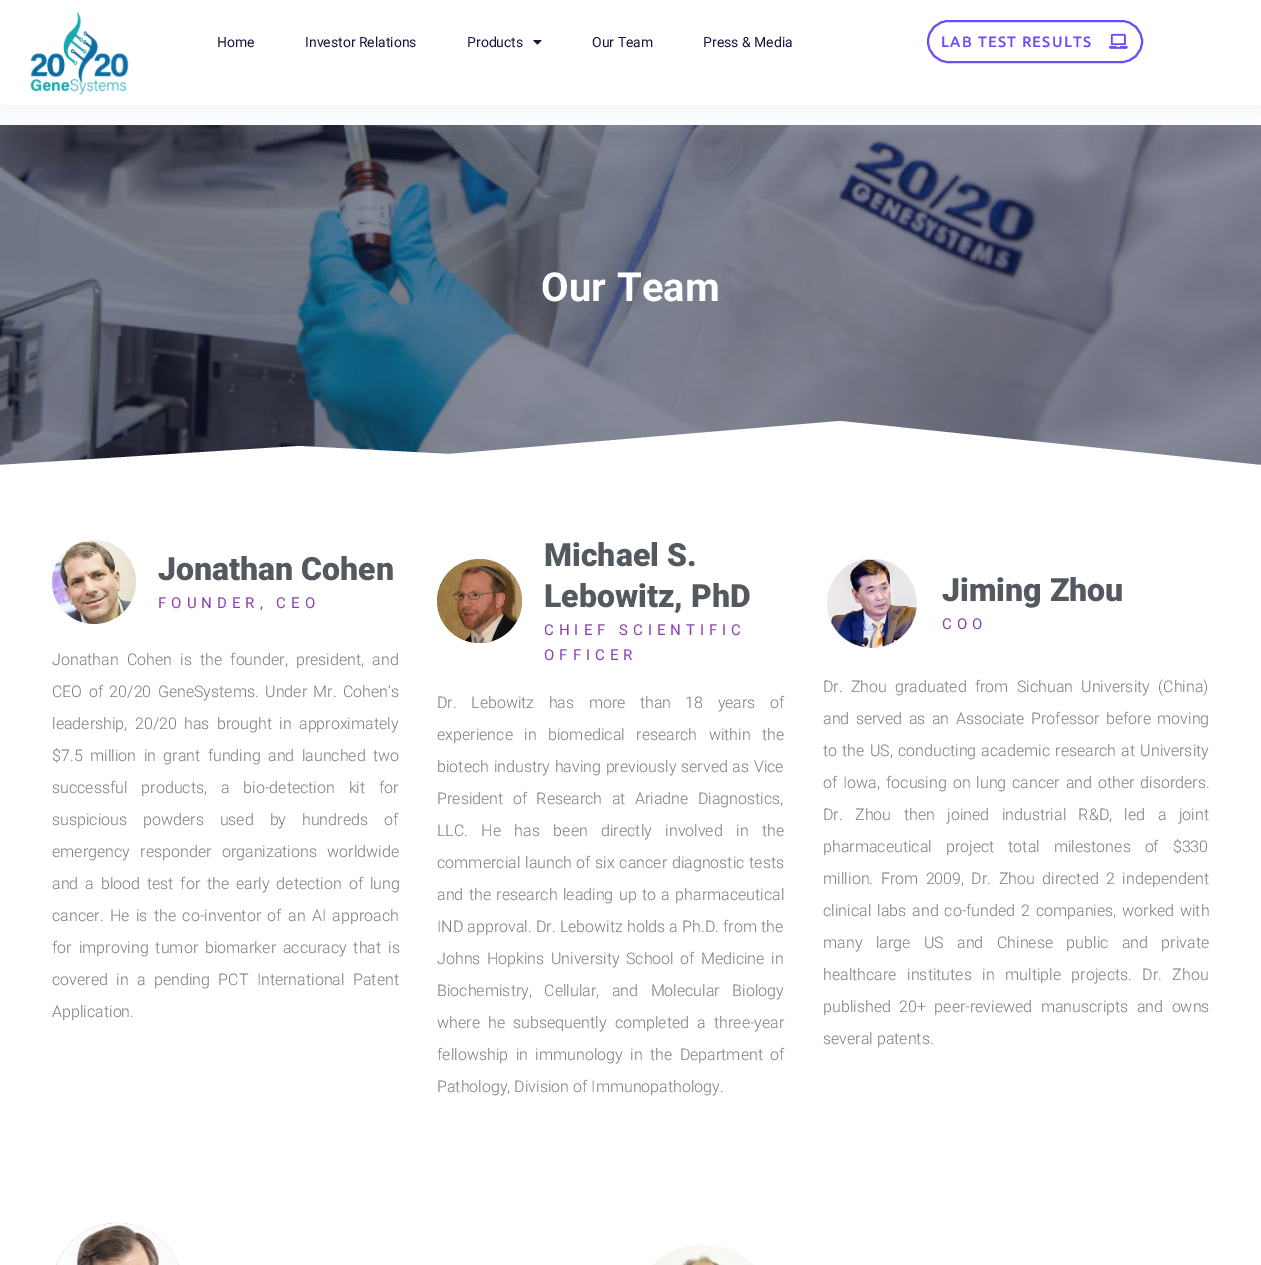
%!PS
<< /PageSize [1261 1265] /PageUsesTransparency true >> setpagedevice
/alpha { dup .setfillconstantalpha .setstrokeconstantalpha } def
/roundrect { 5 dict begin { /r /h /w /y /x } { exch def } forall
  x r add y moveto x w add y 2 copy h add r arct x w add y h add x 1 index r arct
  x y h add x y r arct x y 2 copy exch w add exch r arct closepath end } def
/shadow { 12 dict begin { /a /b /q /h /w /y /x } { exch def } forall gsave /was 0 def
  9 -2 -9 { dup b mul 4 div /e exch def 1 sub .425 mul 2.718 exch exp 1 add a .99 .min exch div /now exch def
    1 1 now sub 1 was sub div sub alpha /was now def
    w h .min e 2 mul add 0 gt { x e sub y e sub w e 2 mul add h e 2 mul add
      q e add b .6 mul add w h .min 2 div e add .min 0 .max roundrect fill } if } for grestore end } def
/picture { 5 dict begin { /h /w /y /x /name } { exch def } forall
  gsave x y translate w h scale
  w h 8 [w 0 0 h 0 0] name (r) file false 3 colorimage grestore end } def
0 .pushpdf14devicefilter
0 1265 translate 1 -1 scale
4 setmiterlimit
1 setgray
0 0 1261 1265 rectfill
(img4.rgb) 0 125 1261 340 picture
gsave
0 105 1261 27 rectclip
0.871 0.882 0.929 setrgbcolor
0 5 1261 105 0 12.5 0.48 shadow
grestore
(img1.rgb) 30 11 99 84 picture
/Roboto-Regular [14 0 0 -14 0 0] selectfont
0.086 0.086 0.247 setrgbcolor
217 47 moveto (Home) show
305 47 moveto (Investor Relations) show
467 47 moveto (Products) show
(img2.rgb) 533 40 9 5 picture
592 47 moveto (Our Team) show
703 47 moveto (Press & Media) show
0.435 0.294 0.949 setrgbcolor
2 setlinewidth
928 21 214 41 20.5 roundrect stroke
/Ubuntu-Medium [15 0 0 -15 0 0] selectfont
941 47 moveto 1.25 0 (LAB TEST RESULTS) ashow
(img3.rgb) 1109 33 19 16 picture
/Roboto-Bold [40 0 0 -40 0 0] selectfont
1 setgray
541 301 moveto 0.25 0 (Our Team) ashow
newpath 299 446 moveto 449 454 lineto 840 421 lineto 1261 465 lineto 1261 467 lineto -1 467 lineto -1 465 lineto fill
(img5.rgb) 52 540 84 84 picture
/Roboto-Black [32 0 0 -32 0 0] selectfont
0.329 0.349 0.373 setrgbcolor
158 580 moveto (Jonathan Cohen) show
/Roboto-Regular [15 0 0 -15 0 0] selectfont
0.549 0.251 0.698 setrgbcolor
158 608 moveto 5 0 (FOUNDER, CEO) ashow
/Roboto-Light [16 0 0 -16 0 0] selectfont
0.478 setgray
52 665 moveto 4.25 0 32 (Jonathan Cohen is the founder, president, and) widthshow
52 697 moveto 2.5 0 32 (CEO of 20/20 GeneSystems. Under Mr. Cohen’s) widthshow
52 729 moveto 3.5 0 32 (leadership, 20/20 has brought in approximately) widthshow
52 761 moveto 3.5 0 32 ($7.5 million in grant funding and launched two) widthshow
52 793 moveto 10 0 32 (successful products, a bio-detection kit for) widthshow
52 825 moveto 12 0 32 (suspicious powders used by hundreds of) widthshow
52 857 moveto 6.5 0 32 (emergency responder organizations worldwide) widthshow
52 889 moveto 3 0 32 (and a blood test for the early detection of lung) widthshow
52 921 moveto 2.5 0 32 (cancer. He is the co-inventor of an AI approach) widthshow
52 953 moveto 3 0 32 (for improving tumor biomarker accuracy that is) widthshow
52 985 moveto 4.5 0 32 (covered in a pending PCT International Patent) widthshow
52 1017 moveto (Application.) show
(img6.rgb) 437 559 85 84 picture
/Roboto-Black [32 0 0 -32 0 0] selectfont
0.329 0.349 0.373 setrgbcolor
544 566 moveto (Michael S.) show
544 607 moveto (Lebowitz, PhD) show
/Roboto-Regular [15 0 0 -15 0 0] selectfont
0.549 0.251 0.698 setrgbcolor
544 635 moveto 5 0 (CHIEF SCIENTIFIC) ashow
544 660 moveto 5 0 (OFFICER) ashow
/Roboto-Light [16 0 0 -16 0 0] selectfont
0.478 setgray
437 708 moveto 10.5 0 32 (Dr. Lebowitz has more than 18 years of) widthshow
437 740 moveto 7.5 0 32 (experience in biomedical research within the) widthshow
437 772 moveto 0.75 0 32 (biotech industry having previously served as Vice) widthshow
437 804 moveto 5.5 0 32 (President of Research at Ariadne Diagnostics,) widthshow
437 836 moveto 9.5 0 32 (LLC. He has been directly involved in the) widthshow
437 868 moveto 0.75 0 32 (commercial launch of six cancer diagnostic tests) widthshow
437 900 moveto 1.5 0 32 (and the research leading up to a pharmaceutical) widthshow
437 932 moveto 0.25 0 32 (IND approval. Dr. Lebowitz holds a Ph.D. from the) widthshow
437 964 moveto 2.5 0 32 (Johns Hopkins University School of Medicine in) widthshow
437 996 moveto 8.5 0 32 (Biochemistry, Cellular, and Molecular Biology) widthshow
437 1028 moveto 4.25 0 32 (where he subsequently completed a three-year) widthshow
437 1060 moveto 3.5 0 32 (fellowship in immunology in the Department of) widthshow
437 1092 moveto (Pathology, Division of Immunopathology.) show
(img7.rgb) 827 558 91 91 picture
/Roboto-Black [32 0 0 -32 0 0] selectfont
0.329 0.349 0.373 setrgbcolor
942 601 moveto (Jiming Zhou) show
/Roboto-Regular [15 0 0 -15 0 0] selectfont
0.549 0.251 0.698 setrgbcolor
942 629 moveto 5 0 (COO) ashow
/Roboto-Light [16 0 0 -16 0 0] selectfont
0.478 setgray
823 692 moveto 4.25 0 32 (Dr. Zhou graduated from Sichuan University \(China\)) widthshow
823 724 moveto 2.5 0 32 (and served as an Associate Professor before moving) widthshow
823 756 moveto 1.25 0 32 (to the US, conducting academic research at University) widthshow
823 788 moveto 2 0 32 (of Iowa, focusing on lung cancer and other disorders.) widthshow
823 820 moveto 8.5 0 32 (Dr. Zhou then joined industrial R&D, led a joint) widthshow
823 852 moveto 10 0 32 (pharmaceutical project total milestones of $330) widthshow
823 884 moveto 3.5 0 32 (million. From 2009, Dr. Zhou directed 2 independent) widthshow
823 916 moveto 2 0 32 (clinical labs and co-funded 2 companies, worked with) widthshow
823 948 moveto 9.5 0 32 (many large US and Chinese public and private) widthshow
823 980 moveto 6.5 0 32 (healthcare institutes in multiple projects. Dr. Zhou) widthshow
823 1012 moveto 4.5 0 32 (published 20+ peer-reviewed manuscripts and owns) widthshow
823 1044 moveto (several patents.) show
(img8.rgb) 56 1223 123 42 picture
(img9.rgb) 653 1245 100 20 picture
.poppdf14devicefilter showpage
